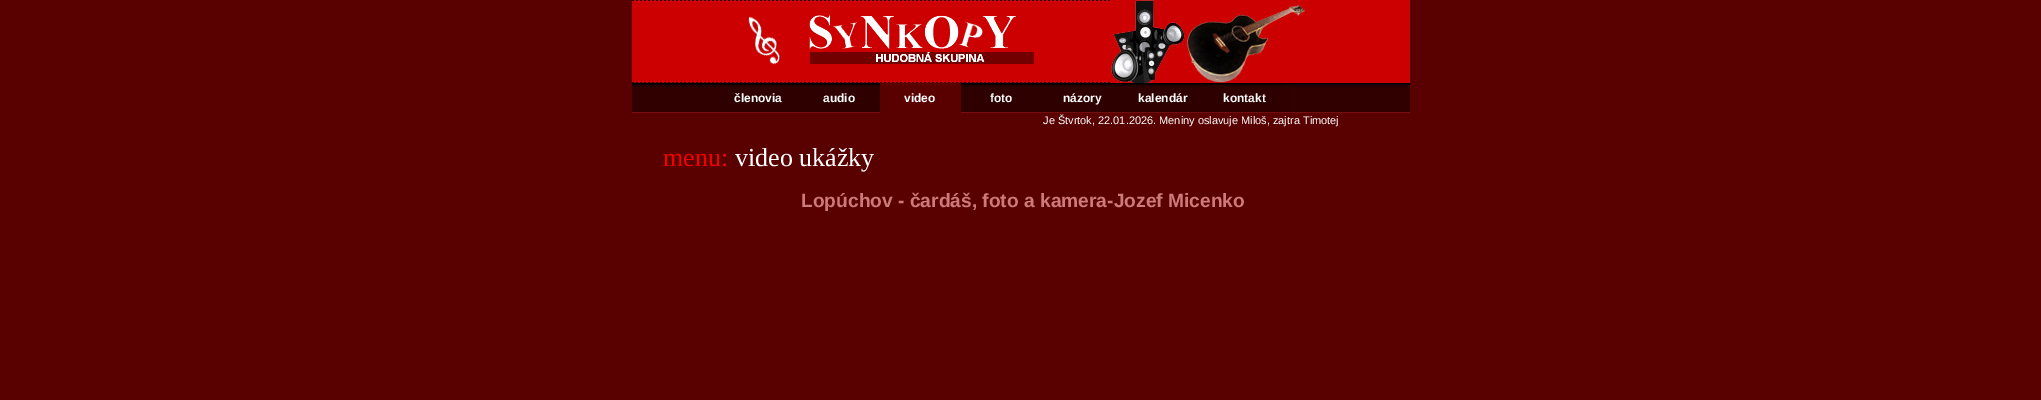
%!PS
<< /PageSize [2041 400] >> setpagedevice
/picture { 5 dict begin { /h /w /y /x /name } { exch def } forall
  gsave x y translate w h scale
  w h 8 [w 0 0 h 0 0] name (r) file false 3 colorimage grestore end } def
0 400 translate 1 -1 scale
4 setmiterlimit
0.349 0 0 setrgbcolor
0 0 2041 400 rectfill
(img1.rgb) 632 0 778 113 picture
(img2.rgb) 748 15 286 50 picture
(img3.rgb) 1110 0 300 83 picture
(img4.rgb) 718 83 81 30 picture
/LiberationSans-Bold [12 0 0 -12 0 0] selectfont
1 setgray
734 102 moveto (členovia) show
(img4.rgb) 799 83 81 30 picture
823 102 moveto (audio) show
0.349 0 0 setrgbcolor
880 83 81 30 rectfill
1 setgray
904 102 moveto (video) show
(img4.rgb) 961 83 81 30 picture
990 102 moveto (foto) show
(img4.rgb) 1042 83 81 30 picture
1063 102 moveto (názory) show
(img4.rgb) 1123 83 81 30 picture
1138 102 moveto (kalendár) show
(img4.rgb) 1204 83 81 30 picture
1223 102 moveto (kontakt) show
/LiberationSans-Regular [11 0 0 -11 0 0] selectfont
1043 124 moveto (Je Štvrtok, 22.01.2026. Meniny oslavuje Miloš, zajtra Timotej) show
/LiberationSerif-Regular [26 0 0 -26 0 0] selectfont
0.945 0 0 setrgbcolor
663 166 moveto (menu:) show
1 setgray
735 166 moveto (video ukážky) show
/LiberationSans-Bold [19.2 0 0 -19.2 0 0] selectfont
0.804 0.478 0.478 setrgbcolor
801 207 moveto (Lopúchov - čardáš, foto a kamera-Jozef Micenko) show
showpage
